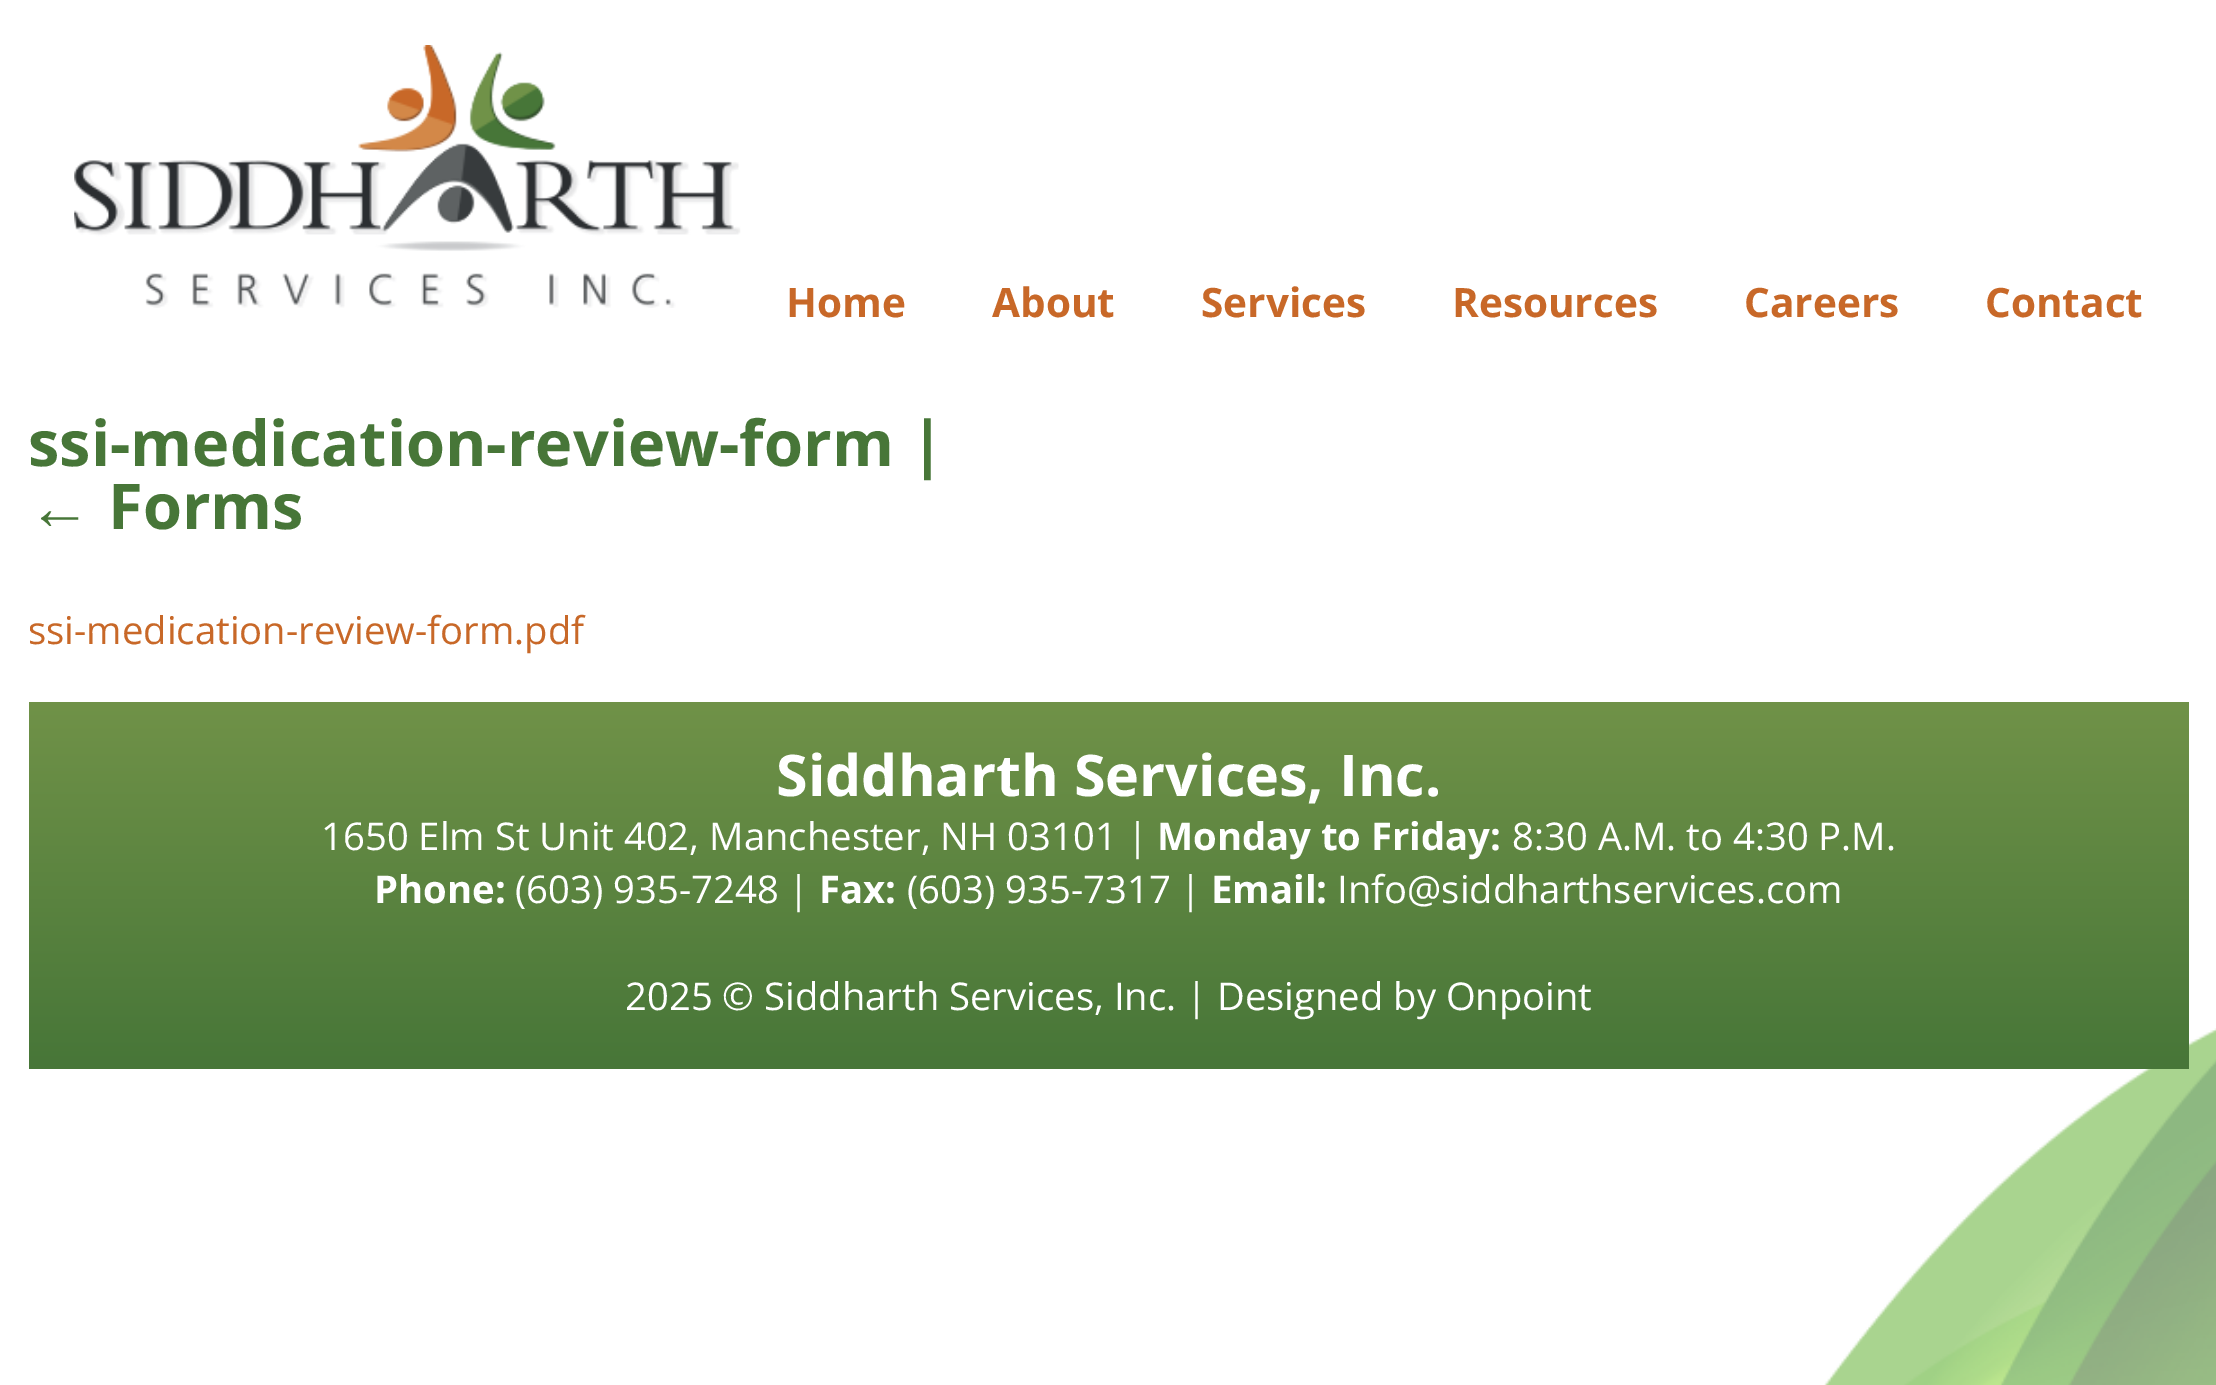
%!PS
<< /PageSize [2216 1385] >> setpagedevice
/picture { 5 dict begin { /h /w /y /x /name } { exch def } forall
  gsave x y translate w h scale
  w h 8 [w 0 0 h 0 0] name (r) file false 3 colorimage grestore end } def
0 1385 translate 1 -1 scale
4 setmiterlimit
1 setgray
0 0 2216 1385 rectfill
(img1.rgb) 1824 1028 392 357 picture
(img2.rgb) 74 45 667 263 picture
/OpenSans-Bold [40.5 0 0 -40.5 0 0] selectfont
0.784 0.408 0.157 setrgbcolor
786 317 moveto (Home) show
992 317 moveto (About) show
1201 317 moveto (Services) show
1452 317 moveto (Resources) show
1744 317 moveto (Careers) show
1985 317 moveto (Contact) show
/OpenSans-Bold [63.1 0 0 -63.1 0 0] selectfont
0.278 0.463 0.22 setrgbcolor
28 466 moveto (ssi-medication-review-form |) show
/LiberationSans-Bold [63.1 0 0 -63.1 0 0] selectfont
28 529 moveto (←) show
/OpenSans-Bold [63.1 0 0 -63.1 0 0] selectfont
108 529 moveto (Forms) show
/OpenSans-Regular [38.25 0 0 -38.25 0 0] selectfont
0.784 0.408 0.157 setrgbcolor
28 644 moveto (ssi-medication-review-form.pdf) show
gsave newpath 29 702 moveto 2189 702 lineto 2189 1069 lineto 29 1069 lineto closepath clip newpath
<< /ShadingType 2 /ColorSpace /DeviceRGB /Coords [1109 702 1109 1069] /Extend [true true] /Function << /FunctionType 2 /Domain [0 1] /C0 [0.439 0.573 0.282] /C1 [0.278 0.463 0.22] /N 1 >> >> shfill grestore
/OpenSans-Bold [57.4 0 0 -57.4 0 0] selectfont
1 setgray
776 796 moveto (Siddharth Services, Inc.) show
/OpenSans-Regular [38.25 0 0 -38.25 0 0] selectfont
321 850 moveto (1650 Elm St Unit 402, Manchester, NH 03101 |) show
/OpenSans-Bold [38.25 0 0 -38.25 0 0] selectfont
1157 850 moveto (Monday to Friday:) show
/OpenSans-Regular [38.25 0 0 -38.25 0 0] selectfont
1512 850 moveto (8:30 A.M. to 4:30 P.M.) show
/OpenSans-Bold [38.25 0 0 -38.25 0 0] selectfont
374 903 moveto (Phone:) show
/OpenSans-Regular [38.25 0 0 -38.25 0 0] selectfont
515 903 moveto (\(603\) 935-7248 |) show
/OpenSans-Bold [38.25 0 0 -38.25 0 0] selectfont
819 903 moveto (Fax:) show
/OpenSans-Regular [38.25 0 0 -38.25 0 0] selectfont
907 903 moveto (\(603\) 935-7317 |) show
/OpenSans-Bold [38.25 0 0 -38.25 0 0] selectfont
1211 903 moveto (Email:) show
/OpenSans-Regular [38.25 0 0 -38.25 0 0] selectfont
1337 903 moveto (Info@siddharthservices.com) show
625 1010 moveto (2025 © Siddharth Services, Inc. | Designed by Onpoint) show
showpage
